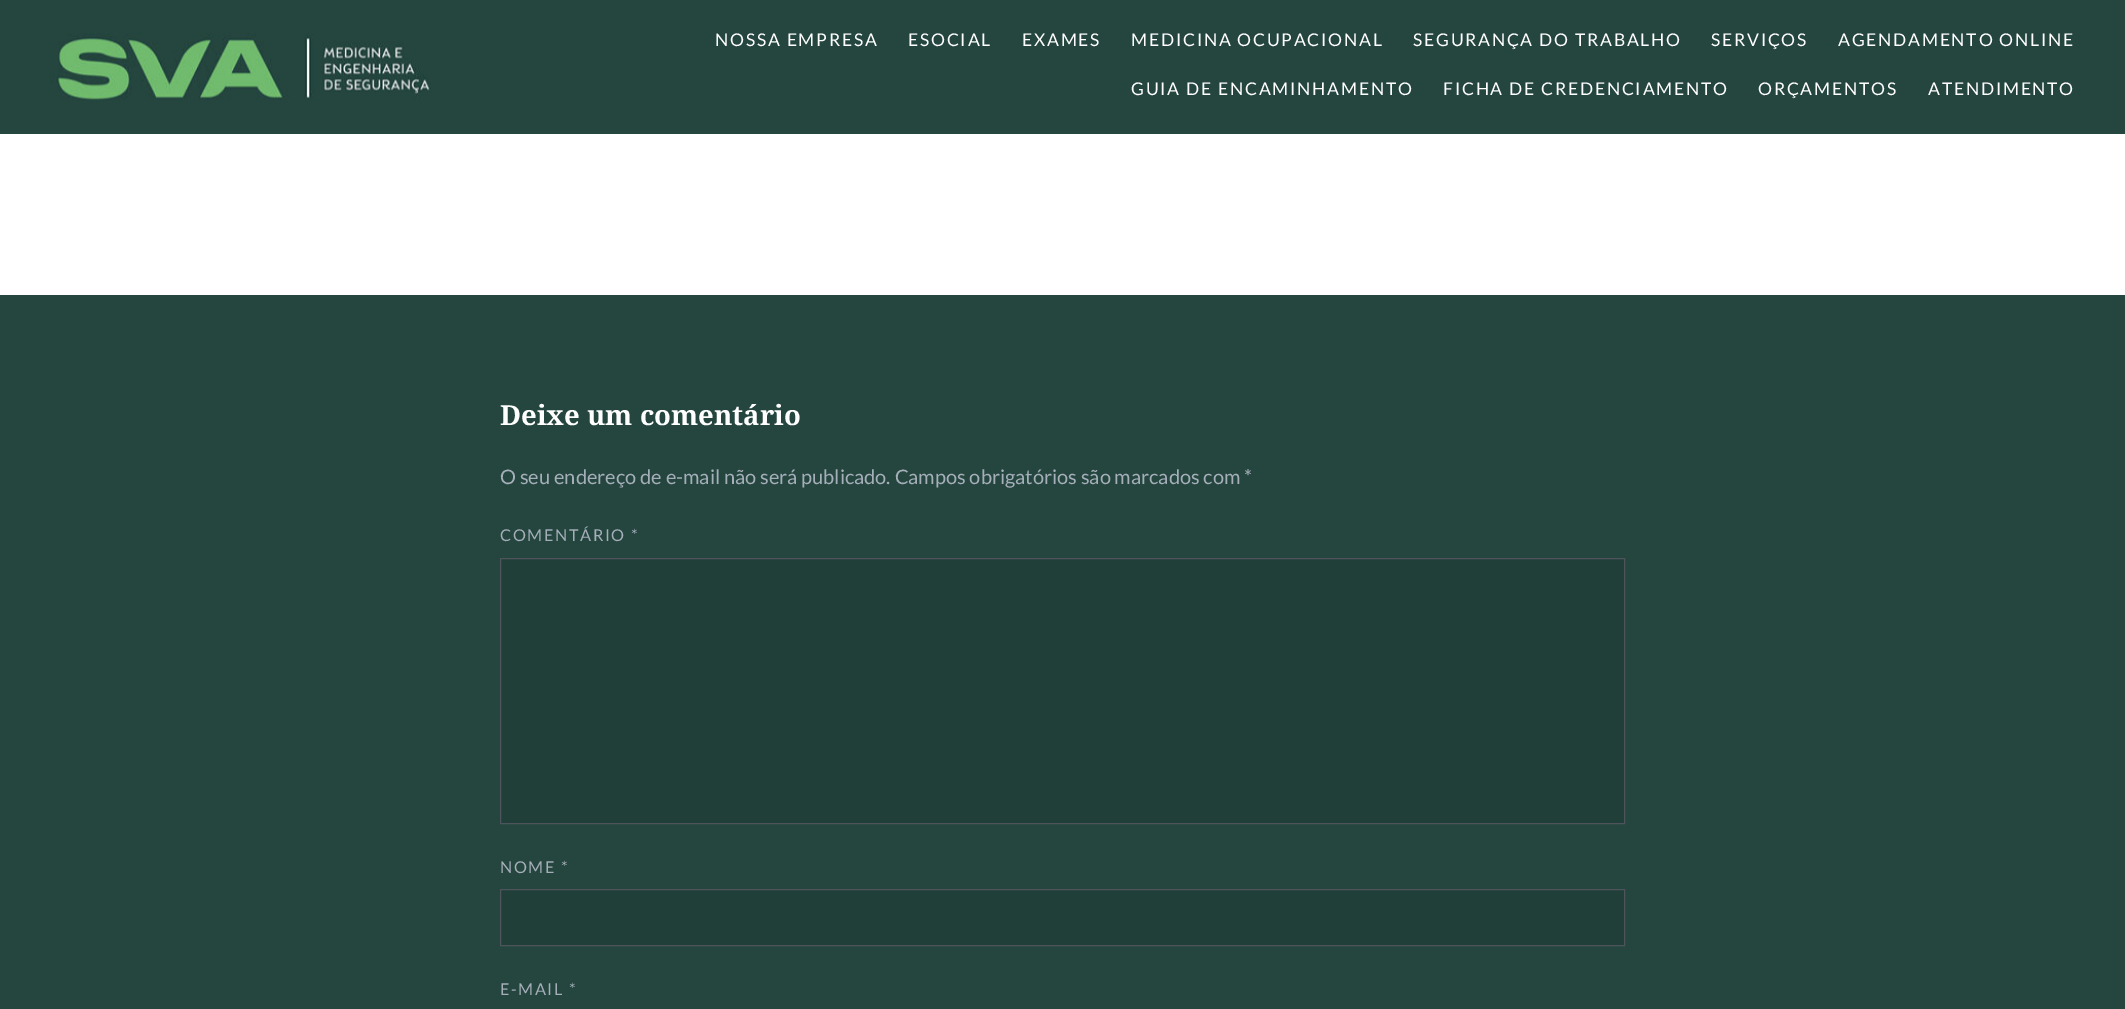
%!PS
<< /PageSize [2125 1009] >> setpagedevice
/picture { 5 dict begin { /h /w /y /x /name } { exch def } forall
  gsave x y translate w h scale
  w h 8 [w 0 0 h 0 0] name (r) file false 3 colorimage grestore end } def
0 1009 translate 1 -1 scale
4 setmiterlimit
1 setgray
0 0 2125 1009 rectfill
0.145 0.275 0.247 setrgbcolor
0 0 2125 134 rectfill
(img1.rgb) 50 33 381 67 picture
/Lato-Regular [17.5 0 0 -17.5 0 0] selectfont
1 setgray
715 46 moveto 1.75 0 (NOSSA EMPRESA) ashow
908 46 moveto 1.75 0 (ESOCIAL) ashow
1022 46 moveto 1.75 0 (EXAMES) ashow
1131 46 moveto 1.75 0 (MEDICINA OCUPACIONAL) ashow
1413 46 moveto 1.75 0 (SEGURANÇA DO TRABALHO) ashow
1711 46 moveto 1.75 0 (SERVIÇOS) ashow
1838 46 moveto 1.75 0 (AGENDAMENTO ONLINE) ashow
1131 95 moveto 1.75 0 (GUIA DE ENCAMINHAMENTO) ashow
1443 95 moveto 1.75 0 (FICHA DE CREDENCIAMENTO) ashow
1758 95 moveto 1.75 0 (ORÇAMENTOS) ashow
1928 95 moveto 1.75 0 (ATENDIMENTO) ashow
0.145 0.275 0.247 setrgbcolor
0 295 2125 714 rectfill
/NotoSerif-Bold [27.5 0 0 -27.5 0 0] selectfont
1 setgray
500 425 moveto (Deixe um comentário) show
/Lato-Regular [20 0 0 -20 0 0] selectfont
0.647 0.686 0.729 setrgbcolor
500 484 moveto (O seu endereço de e-mail não será publicado. Campos obrigatórios são marcados com *) show
/Lato-Regular [16.25 0 0 -16.25 0 0] selectfont
500 541 moveto 1.6 0 (COMENTÁRIO *) ashow
0.129 0.247 0.224 setrgbcolor
newpath 500.5 558.5 moveto 1624.5 558.5 lineto 1624.5 823.5 lineto 500.5 823.5 lineto closepath gsave fill grestore
0.302 0.329 0.357 setrgbcolor
stroke
0.647 0.686 0.729 setrgbcolor
500 873 moveto 1.6 0 (NOME *) ashow
0.129 0.247 0.224 setrgbcolor
newpath 500.5 889.5 moveto 1624.5 889.5 lineto 1624.5 945.5 lineto 500.5 945.5 lineto closepath gsave fill grestore
0.302 0.329 0.357 setrgbcolor
stroke
0.647 0.686 0.729 setrgbcolor
500 995 moveto 1.6 0 (E-MAIL *) ashow
showpage
